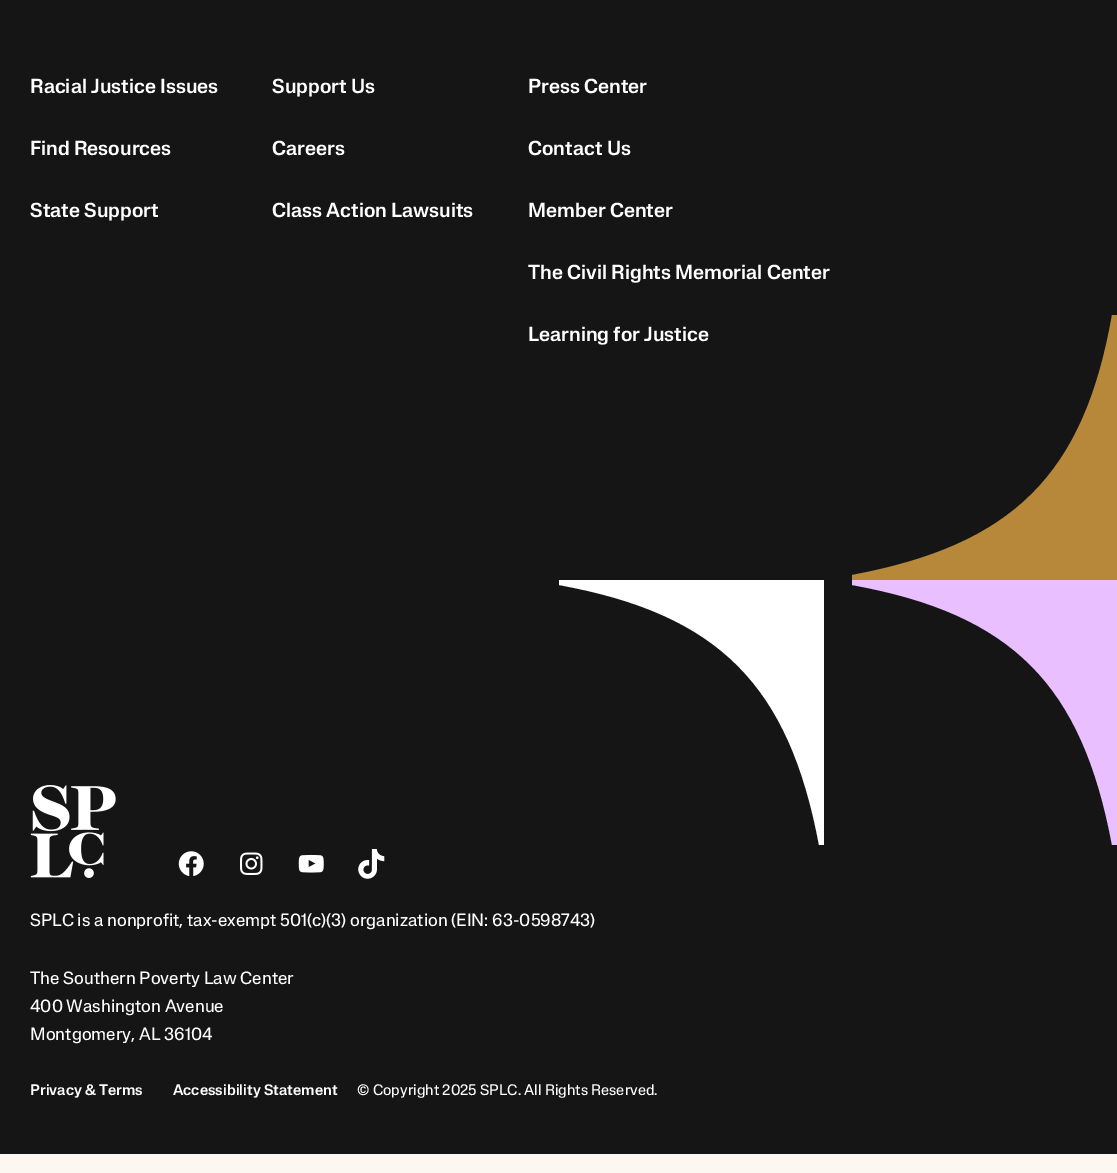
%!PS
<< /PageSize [1117 1173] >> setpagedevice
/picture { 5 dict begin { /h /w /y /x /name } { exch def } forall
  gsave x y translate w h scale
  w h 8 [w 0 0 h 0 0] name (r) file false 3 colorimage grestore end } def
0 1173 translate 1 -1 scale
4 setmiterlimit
0.988 0.973 0.945 setrgbcolor
0 0 1117 1173 rectfill
0.082 setgray
0 0 1117 1154 rectfill
/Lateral-Medium [20 0 0 -20 0 0] selectfont
1 setgray
30 93 moveto (Racial Justice Issues) show
30 155 moveto (Find Resources) show
30 217 moveto (State Support) show
272 93 moveto (Support Us) show
272 155 moveto (Careers) show
272 217 moveto (Class Action Lawsuits) show
528 93 moveto (Press Center) show
528 155 moveto (Contact Us) show
528 217 moveto (Member Center) show
528 279 moveto (The Civil Rights Memorial Center) show
528 341 moveto (Learning for Justice) show
0.914 0.749 1 setrgbcolor
newpath 1112 845 moveto 1117 845 lineto 1117 580 lineto 852 580 lineto 852 585 lineto 1013 614 1082 685 1112 845 curveto closepath fill
0.718 0.533 0.224 setrgbcolor
newpath 852 575 moveto 852 580 lineto 1117 580 lineto 1117 315 lineto 1112 315 lineto 1084 475 1013 545 852 575 curveto closepath fill
1 setgray
newpath 819 845 moveto 824 845 lineto 824 580 lineto 559 580 lineto 559 585 lineto 719 614 789 685 819 845 curveto closepath fill
(img1.rgb) 30 785 86 93 picture
(img2.rgb) 178 851 26 26 picture
(img3.rgb) 240 852 23 23 picture
(img4.rgb) 298 854 26 19 picture
(img5.rgb) 358 849 27 30 picture
/Lateral-Regular [17.5 0 0 -17.5 0 0] selectfont
30 926 moveto (SPLC is a nonprofit, tax-exempt 501\(c\)\(3\) organization \(EIN: 63-0598743\)) show
30 984 moveto (The Southern Poverty Law Center) show
30 1012 moveto (400 Washington Avenue) show
30 1040 moveto (Montgomery, AL 36104) show
/Lateral-Medium [15 0 0 -15 0 0] selectfont
30 1095 moveto (Privacy & Terms) show
173 1095 moveto (Accessibility Statement) show
/Lateral-Regular [15 0 0 -15 0 0] selectfont
357 1095 moveto (© Copyright 2025 SPLC. All Rights Reserved.) show
showpage
